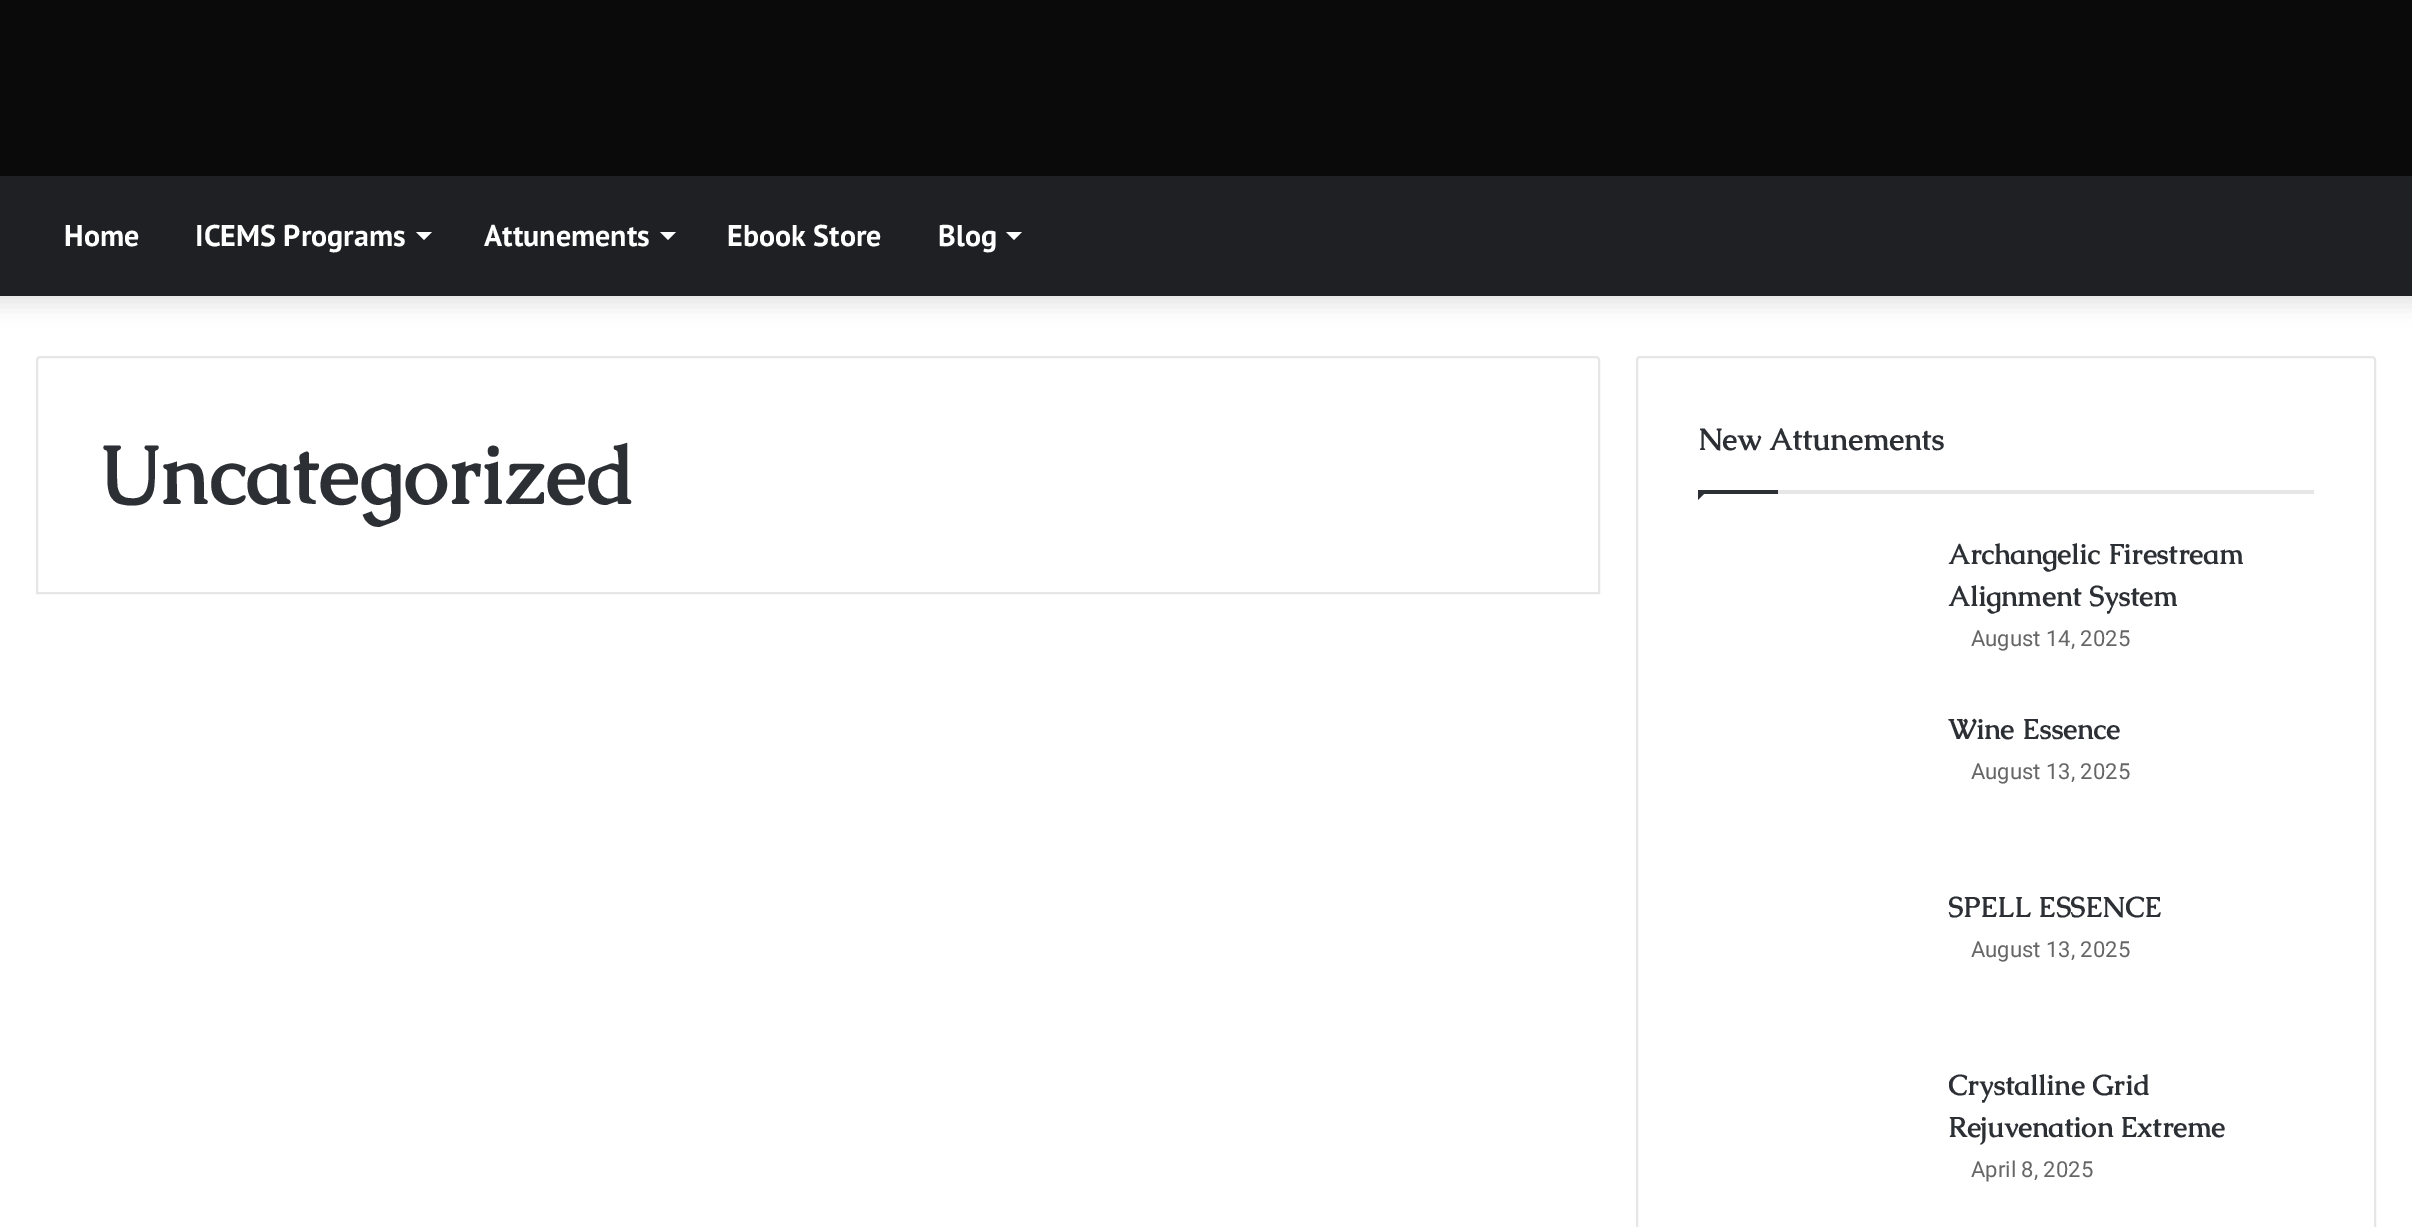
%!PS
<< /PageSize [2412 1227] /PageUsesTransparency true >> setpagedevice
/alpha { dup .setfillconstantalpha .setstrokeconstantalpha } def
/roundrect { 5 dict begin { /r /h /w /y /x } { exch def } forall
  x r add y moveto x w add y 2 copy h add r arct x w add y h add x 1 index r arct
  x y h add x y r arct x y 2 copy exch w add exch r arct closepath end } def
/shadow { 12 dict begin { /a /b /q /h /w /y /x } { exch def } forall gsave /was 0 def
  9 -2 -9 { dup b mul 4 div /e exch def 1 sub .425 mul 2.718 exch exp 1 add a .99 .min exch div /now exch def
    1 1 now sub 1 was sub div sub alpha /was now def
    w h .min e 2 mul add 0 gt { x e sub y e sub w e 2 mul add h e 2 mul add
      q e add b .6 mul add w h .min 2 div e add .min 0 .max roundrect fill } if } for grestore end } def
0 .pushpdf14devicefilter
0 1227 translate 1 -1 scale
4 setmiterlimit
1 setgray
0 0 2412 1227 rectfill
0 setgray
-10 -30 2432 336 0 10 0.1 shadow
0.039 setgray
0 0 2412 176 rectfill
0.122 0.125 0.141 setrgbcolor
0 176 2412 120 rectfill
/PTSans-Bold [30 0 0 -30 0 0] selectfont
1 setgray
64 246 moveto (Home) show
195 246 moveto (ICEMS Programs) show
newpath 416 232 moveto 432 232 lineto 424 240 lineto closepath fill
484 246 moveto (Attunements) show
newpath 660 232 moveto 676 232 lineto 668 240 lineto closepath fill
727 246 moveto (Ebook Store) show
938 246 moveto (Blog) show
newpath 1006 232 moveto 1022 232 lineto 1014 240 lineto closepath fill
0.902 setgray
2 setlinewidth
newpath 40 357 moveto 1596 357 lineto 1597.5 357 1599 358.5 1599 360 curveto 1599 593 lineto 37 593 lineto 37 360 lineto 37 358.5 38.5 357 40 357 curveto closepath stroke
/Caudex-Bold [82 0 0 -82 0 0] selectfont
0.173 0.184 0.204 setrgbcolor
98 504 moveto (Uncategorized) show
0.902 setgray
1637 357 738 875 3 roundrect stroke
1778 490 536 4 rectfill
/Caudex-Bold [30 0 0 -30 0 0] selectfont
0.173 0.184 0.204 setrgbcolor
1698 450 moveto (New Attunements) show
newpath 1698 490 moveto 1708 490 lineto 1698 500 lineto closepath fill
1698 490 80 4 rectfill
/Caudex-Bold [28 0 0 -28 0 0] selectfont
1948 564 moveto (Archangelic Firestream) show
1948 606 moveto (Alignment System) show
/Roboto-Regular [22 0 0 -22 0 0] selectfont
0.4 setgray
1971 646 moveto (August 14, 2025) show
/Caudex-Bold [28 0 0 -28 0 0] selectfont
0.173 0.184 0.204 setrgbcolor
1948 739 moveto (Wine Essence) show
/Roboto-Regular [22 0 0 -22 0 0] selectfont
0.4 setgray
1971 779 moveto (August 13, 2025) show
/Caudex-Bold [28 0 0 -28 0 0] selectfont
0.173 0.184 0.204 setrgbcolor
1948 917 moveto (SPELL ESSENCE) show
/Roboto-Regular [22 0 0 -22 0 0] selectfont
0.4 setgray
1971 957 moveto (August 13, 2025) show
/Caudex-Bold [28 0 0 -28 0 0] selectfont
0.173 0.184 0.204 setrgbcolor
1948 1095 moveto (Crystalline Grid) show
1948 1137 moveto (Rejuvenation Extreme) show
/Roboto-Regular [22 0 0 -22 0 0] selectfont
0.4 setgray
1971 1177 moveto (April 8, 2025) show
.poppdf14devicefilter showpage
